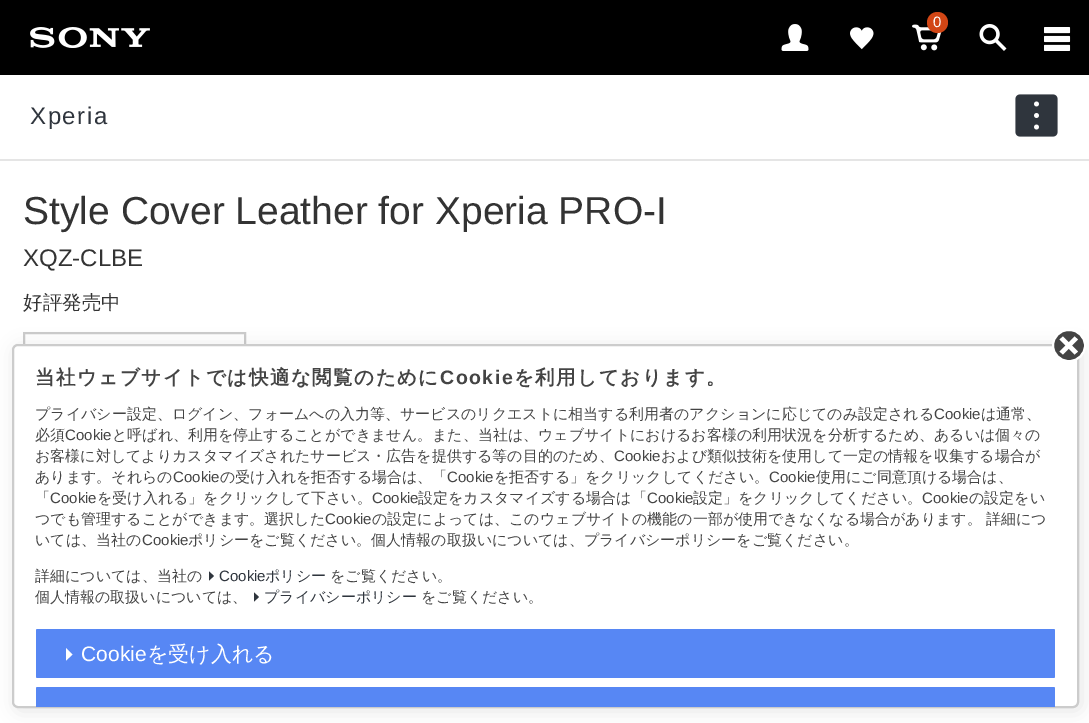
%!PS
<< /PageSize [1089 723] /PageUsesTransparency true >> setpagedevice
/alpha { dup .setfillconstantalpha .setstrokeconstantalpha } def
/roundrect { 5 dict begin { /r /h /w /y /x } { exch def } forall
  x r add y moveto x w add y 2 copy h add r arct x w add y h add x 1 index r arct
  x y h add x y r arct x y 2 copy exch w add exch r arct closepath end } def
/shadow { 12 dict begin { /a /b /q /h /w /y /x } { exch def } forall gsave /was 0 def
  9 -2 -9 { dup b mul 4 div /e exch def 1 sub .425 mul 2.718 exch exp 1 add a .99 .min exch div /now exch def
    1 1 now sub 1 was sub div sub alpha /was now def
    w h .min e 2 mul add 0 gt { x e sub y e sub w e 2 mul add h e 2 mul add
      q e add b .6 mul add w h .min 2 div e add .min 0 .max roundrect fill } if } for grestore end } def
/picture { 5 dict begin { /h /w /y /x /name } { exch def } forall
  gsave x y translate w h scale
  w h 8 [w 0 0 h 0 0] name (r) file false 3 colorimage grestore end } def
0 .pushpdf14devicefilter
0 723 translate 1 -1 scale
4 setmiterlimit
1 setgray
0 0 1089 723 rectfill
0 setgray
0 0 1089 75 rectfill
(img1.rgb) 912 24 30 27 picture
0.824 0.275 0.082 setrgbcolor
newpath 937.5 22.5 10.5 0 360 arc closepath fill
/LiberationSans-Regular [15 0 0 -15 0 0] selectfont
1 setgray
933 27 moveto (0) show
(img2.rgb) 781 24 28 27 picture
(img3.rgb) 850 27 24 23 picture
(img4.rgb) 979 24 28 27 picture
(img5.rgb) 30 27 120 21 picture
(img6.rgb) 1044 27 27 24 picture
0.898 setgray
0 159 1089 2 rectfill
/LiberationSans-Regular [24 0 0 -24 0 0] selectfont
0.184 0.208 0.239 setrgbcolor
30 124 moveto 1.5 0 (Xperia) ashow
(img7.rgb) 1015 94 43 43 picture
/LiberationSans-Regular [39 0 0 -39 0 0] selectfont
0.2 setgray
23 224 moveto (Style Cover Leather for Xperia PRO-I) show
/LiberationSans-Regular [24 0 0 -24 0 0] selectfont
23 266 moveto (XQZ-CLBE) show
/WenQuanYiZenHei-Medium [19.5 0 0 -19.5 0 0] selectfont
23 309 moveto (好評発売中) show
0.8 setgray
2 setlinewidth
24 333 221 44 rectstroke
0 setgray
15 347 1067 364 6 9 0.1 shadow
1 setgray
13 345 1065 362 5 roundrect gsave fill grestore
0.8 setgray
stroke
0.267 setgray
1053 330 32 31 15.5 roundrect gsave fill grestore
1 setgray
stroke
newpath 1059.5 351.5 moveto 1074.5 336.5 lineto 1078 339.5 lineto 1063 354.5 lineto closepath fill
newpath 1063 336.5 moveto 1078 351.5 lineto 1074.5 354.5 lineto 1059.5 339.5 lineto closepath fill
/WenQuanYiZenHei-Bold [19.5 0 0 -19.5 0 0] selectfont
0.267 setgray
35 384 moveto 1.5 0 (当社ウェブサイトでは快適な閲覧のために) ashow
/LiberationSans-Bold [19.5 0 0 -19.5 0 0] selectfont
440 384 moveto 1.5 0 (Cookie) ashow
/WenQuanYiZenHei-Bold [19.5 0 0 -19.5 0 0] selectfont
514 384 moveto 1.5 0 (を利用しております。) ashow
/WenQuanYiZenHei-Medium [15 0 0 -15 0 0] selectfont
35 419 moveto (プライバシー設定、ログイン、フォームへの入力等、サービスのリクエストに相当する利用者のアクションに応じてのみ設定される) show
/LiberationSans-Regular [15 0 0 -15 0 0] selectfont
934 419 moveto (Cookie) show
/WenQuanYiZenHei-Medium [15 0 0 -15 0 0] selectfont
981 419 moveto (は通常、) show
35 440 moveto (必須) show
/LiberationSans-Regular [15 0 0 -15 0 0] selectfont
65 440 moveto (Cookie) show
/WenQuanYiZenHei-Medium [15 0 0 -15 0 0] selectfont
112 440 moveto (と呼ばれ、利用を停止することができません。また、当社は、ウェブサイトにおけるお客様の利用状況を分析するため、あるいは個々の) show
35 461 moveto (お客様に対してよりカスタマイズされたサービス・広告を提供する等の目的のため、) show
/LiberationSans-Regular [15 0 0 -15 0 0] selectfont
614 461 moveto (Cookie) show
/WenQuanYiZenHei-Medium [15 0 0 -15 0 0] selectfont
661 461 moveto (および類似技術を使用して一定の情報を収集する場合が) show
35 482 moveto (あります。それらの) show
/LiberationSans-Regular [15 0 0 -15 0 0] selectfont
173 482 moveto (Cookie) show
/WenQuanYiZenHei-Medium [15 0 0 -15 0 0] selectfont
220 482 moveto (の受け入れを拒否する場合は、「) show
/LiberationSans-Regular [15 0 0 -15 0 0] selectfont
447 482 moveto (Cookie) show
/WenQuanYiZenHei-Medium [15 0 0 -15 0 0] selectfont
494 482 moveto (を拒否する」をクリックしてください。) show
/LiberationSans-Regular [15 0 0 -15 0 0] selectfont
769 482 moveto (Cookie) show
/WenQuanYiZenHei-Medium [15 0 0 -15 0 0] selectfont
816 482 moveto (使用にご同意頂ける場合は、) show
35 503 moveto (「) show
/LiberationSans-Regular [15 0 0 -15 0 0] selectfont
50 503 moveto (Cookie) show
/WenQuanYiZenHei-Medium [15 0 0 -15 0 0] selectfont
97 503 moveto (を受け入れる」をクリックして下さい。) show
/LiberationSans-Regular [15 0 0 -15 0 0] selectfont
372 503 moveto (Cookie) show
/WenQuanYiZenHei-Medium [15 0 0 -15 0 0] selectfont
418 503 moveto (設定をカスタマイズする場合は「) show
/LiberationSans-Regular [15 0 0 -15 0 0] selectfont
647 503 moveto (Cookie) show
/WenQuanYiZenHei-Medium [15 0 0 -15 0 0] selectfont
693 503 moveto (設定」をクリックしてください。) show
/LiberationSans-Regular [15 0 0 -15 0 0] selectfont
922 503 moveto (Cookie) show
/WenQuanYiZenHei-Medium [15 0 0 -15 0 0] selectfont
969 503 moveto (の設定をい) show
35 524 moveto (つでも管理することができます。選択した) show
/LiberationSans-Regular [15 0 0 -15 0 0] selectfont
325 524 moveto (Cookie) show
/WenQuanYiZenHei-Medium [15 0 0 -15 0 0] selectfont
372 524 moveto (の設定によっては、このウェブサイトの機能の一部が使用できなくなる場合があります。) show
986 524 moveto (詳細につ) show
35 545 moveto (いては、当社の) show
/LiberationSans-Regular [15 0 0 -15 0 0] selectfont
142 545 moveto (Cookie) show
/WenQuanYiZenHei-Medium [15 0 0 -15 0 0] selectfont
188 545 moveto (ポリシーをご覧ください。個人情報の取扱いについては、プライバシーポリシーをご覧ください。) show
35 581 moveto (詳細については、当社の) show
0.184 0.208 0.239 setrgbcolor
newpath 209 571.5 moveto 214 576 lineto 209 580.5 lineto closepath fill
/LiberationSans-Regular [15 0 0 -15 0 0] selectfont
219 581 moveto (Cookie) show
/WenQuanYiZenHei-Medium [15 0 0 -15 0 0] selectfont
265 581 moveto (ポリシー) show
0.267 setgray
330 581 moveto (をご覧ください。) show
35 602 moveto (個人情報の取扱いについては、) show
0.184 0.208 0.239 setrgbcolor
newpath 254 592.5 moveto 259 597 lineto 254 601.5 lineto closepath fill
264 602 moveto (プライバシーポリシー) show
0.267 setgray
421 602 moveto (をご覧ください。) show
0.341 0.529 0.957 setrgbcolor
36 629 1019 49 1.5 roundrect fill
1 setgray
newpath 66 648 moveto 72.5 654.5 lineto 66 660.5 lineto closepath fill
/LiberationSans-Regular [21 0 0 -21 0 0] selectfont
81 661 moveto (Cookie) show
/WenQuanYiZenHei-Medium [21 0 0 -21 0 0] selectfont
147 661 moveto (を受け入れる) show
0.341 0.529 0.957 setrgbcolor
newpath 37.5 687 moveto 1053.5 687 lineto 1054.5 687 1055 687.5 1055 688.5 curveto 1055 707 lineto 36 707 lineto 36 688.5 lineto 36 687.5 36.5 687 37.5 687 curveto closepath fill
.poppdf14devicefilter showpage
